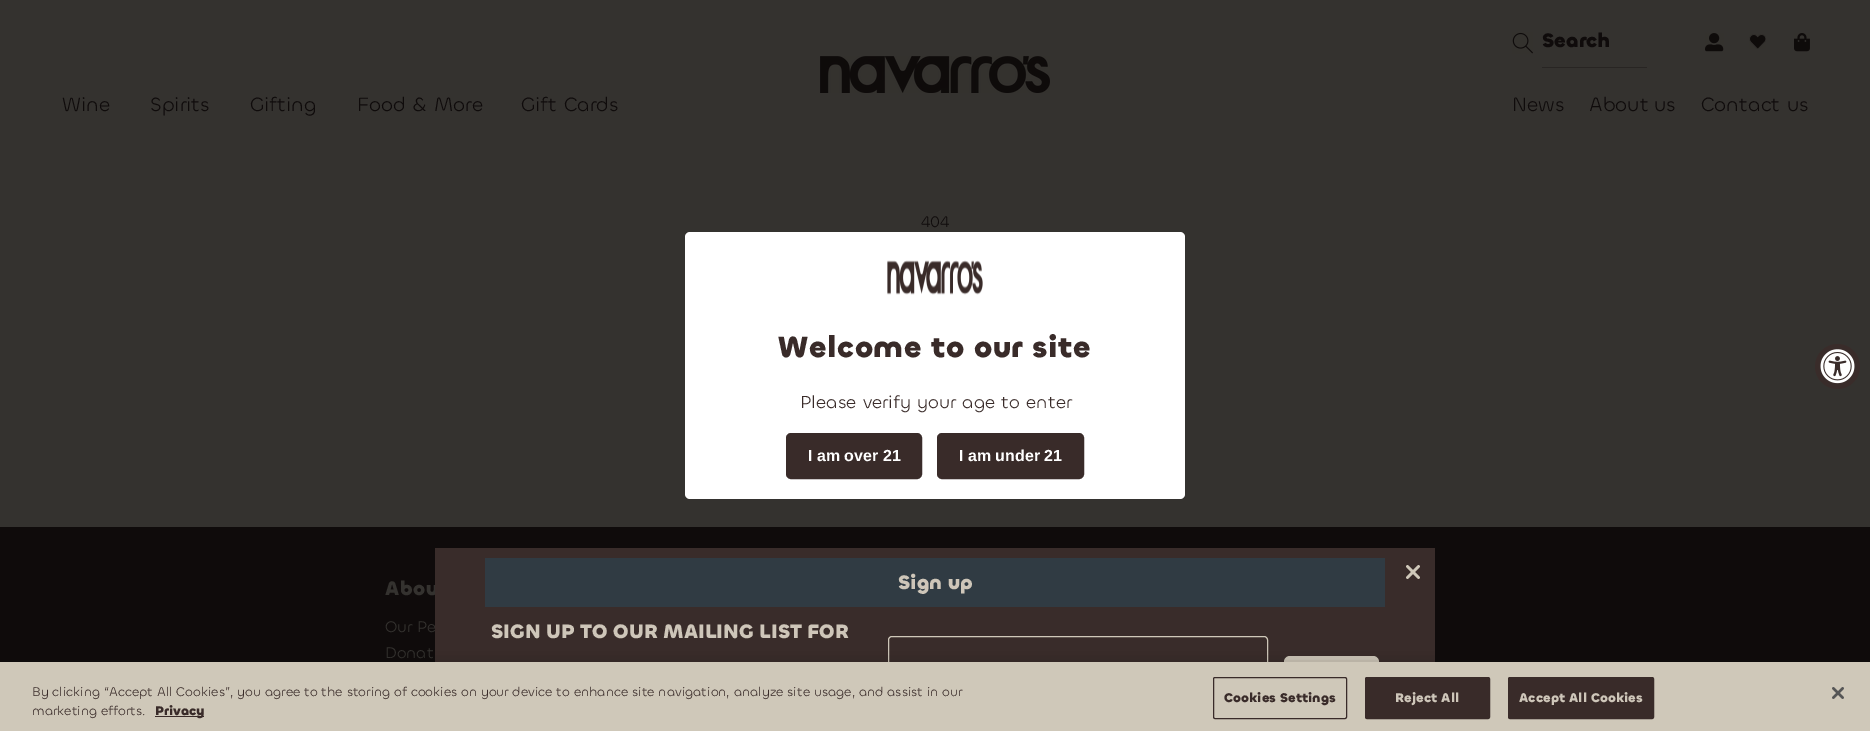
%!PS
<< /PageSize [1870 731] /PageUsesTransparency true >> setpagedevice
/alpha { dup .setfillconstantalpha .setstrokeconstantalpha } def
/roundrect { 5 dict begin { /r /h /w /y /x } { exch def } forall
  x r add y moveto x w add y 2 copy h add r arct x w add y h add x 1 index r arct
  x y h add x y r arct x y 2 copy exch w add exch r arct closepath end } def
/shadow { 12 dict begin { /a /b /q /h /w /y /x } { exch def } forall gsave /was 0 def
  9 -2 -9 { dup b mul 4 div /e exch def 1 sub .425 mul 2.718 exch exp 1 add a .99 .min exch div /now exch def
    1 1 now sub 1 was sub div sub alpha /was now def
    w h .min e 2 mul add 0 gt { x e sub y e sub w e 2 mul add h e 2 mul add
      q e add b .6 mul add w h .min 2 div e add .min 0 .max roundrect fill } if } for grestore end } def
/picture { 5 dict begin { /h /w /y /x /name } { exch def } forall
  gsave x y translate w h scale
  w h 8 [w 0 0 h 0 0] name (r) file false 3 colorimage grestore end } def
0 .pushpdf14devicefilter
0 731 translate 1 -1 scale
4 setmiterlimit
0.204 0.196 0.184 setrgbcolor
0 0 1870 731 rectfill
(img1.rgb) 1512 32 21 22 picture
0.157 0.145 0.137 setrgbcolor
1542 67 105 1 rectfill
/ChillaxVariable-Bold [20 0 0 -20 0 0] selectfont
0.059 0.043 0.043 setrgbcolor
1542 47 moveto (Search) show
(img2.rgb) 1705 33 19 19 picture
(img3.rgb) 1749 34 17 15 picture
(img4.rgb) 1794 33 16 19 picture
(img5.rgb) 820 56 230 37 picture
/ChillaxVariable-Regular [20 0 0 -20 0 0] selectfont
62 111 moveto (Wine) show
150 111 moveto (Spirits) show
250 111 moveto (Gifting) show
357 111 moveto 1 0 32 (Food & More) widthshow
521 111 moveto 1 0 32 (Gift Cards) widthshow
1512 111 moveto (News) show
1589 111 moveto (About us) show
1701 111 moveto 1 0 32 (Contact us) widthshow
/ChillaxVariable-Regular [16 0 0 -16 0 0] selectfont
921 227 moveto (404) show
1 setgray
685 232 500 267 5 roundrect fill
(img6.rgb) 887 260 96 35 picture
/ChillaxVariable-Bold [30 0 0 -30 0 0] selectfont
0.224 0.169 0.161 setrgbcolor
778 357 moveto 0.6 0 (Welcome to our site) ashow
/ChillaxVariable-Regular [18 0 0 -18 0 0] selectfont
800 408 moveto 1 0 32 (Please verify your age to enter) widthshow
787 434 134 44 4 roundrect gsave fill grestore
2 setlinewidth
stroke
/LiberationSans-Bold [16 0 0 -16 0 0] selectfont
1 setgray
808 461 moveto (I am over 21) show
0.224 0.169 0.161 setrgbcolor
938 434 145 44 4 roundrect gsave fill grestore
stroke
1 setgray
959 461 moveto (I am under 21) show
0.224 0.173 0.165 setrgbcolor
newpath 1837.5 366.5 22.5 0 360 arc closepath fill
(img7.rgb) 1820 349 35 35 picture
0.059 0.043 0.043 setrgbcolor
0 527 1870 135 rectfill
/ChillaxVariable-Bold [20 0 0 -20 0 0] selectfont
0.204 0.196 0.184 setrgbcolor
385 595 moveto 0.6 0 (Abou) ashow
/ChillaxVariable-Regular [16 0 0 -16 0 0] selectfont
385 632 moveto (Our Pe) show
385 658 moveto (Donat) show
0.224 0.173 0.165 setrgbcolor
435 548 1000 114 rectfill
0.188 0.231 0.263 setrgbcolor
485 558 900 49 rectfill
/ChillaxVariable-Bold [20 0 0 -20 0 0] selectfont
0.808 0.776 0.725 setrgbcolor
898 589 moveto (Sign up) show
491 638 moveto (SIGN UP TO OUR MAILING LIST FOR) show
0.812 0.784 0.725 setrgbcolor
1 setlinewidth
888.5 636.5 379 64 3.5 roundrect stroke
1284 656 95 45 6 roundrect fill
2.8 setlinewidth
1 setlinecap
1 setlinejoin
newpath 1407.5 566.5 moveto 1418.5 577.5 lineto 1407.5 577.5 moveto 1418.5 566.5 lineto closepath stroke
0 setgray
0 662 1870 69 0 9 0.2 shadow
0.812 0.784 0.725 setrgbcolor
0 662 1870 69 rectfill
/ChillaxVariable-Regular [13 0 0 -13 0 0] selectfont
0.224 0.169 0.161 setrgbcolor
32 696 moveto (By clicking “Accept All Cookies”, you agree to the storing of cookies on your device to enhance site navigation, analyze site usage, and assist in our) show
32 715 moveto (marketing efforts.) show
155 716 49 1 rectfill
/ChillaxVariable-Bold [13 0 0 -13 0 0] selectfont
155 715 moveto (Privacy) show
1 setlinewidth
0 setlinecap
0 setlinejoin
1213.5 677.5 133 41 1.5 roundrect stroke
1224 702 moveto 0.1 0 (Cookies Settings) ashow
1365.5 677.5 124 41 1.5 roundrect gsave fill grestore
stroke
0.808 0.776 0.725 setrgbcolor
1395 702 moveto 0.1 0 (Reject All) ashow
0.224 0.169 0.161 setrgbcolor
1508.5 677.5 145 41 1.5 roundrect gsave fill grestore
stroke
0.808 0.776 0.725 setrgbcolor
1519 702 moveto 0.1 0 (Accept All Cookies) ashow
(img8.rgb) 1832 687 12 12 picture
.poppdf14devicefilter showpage
